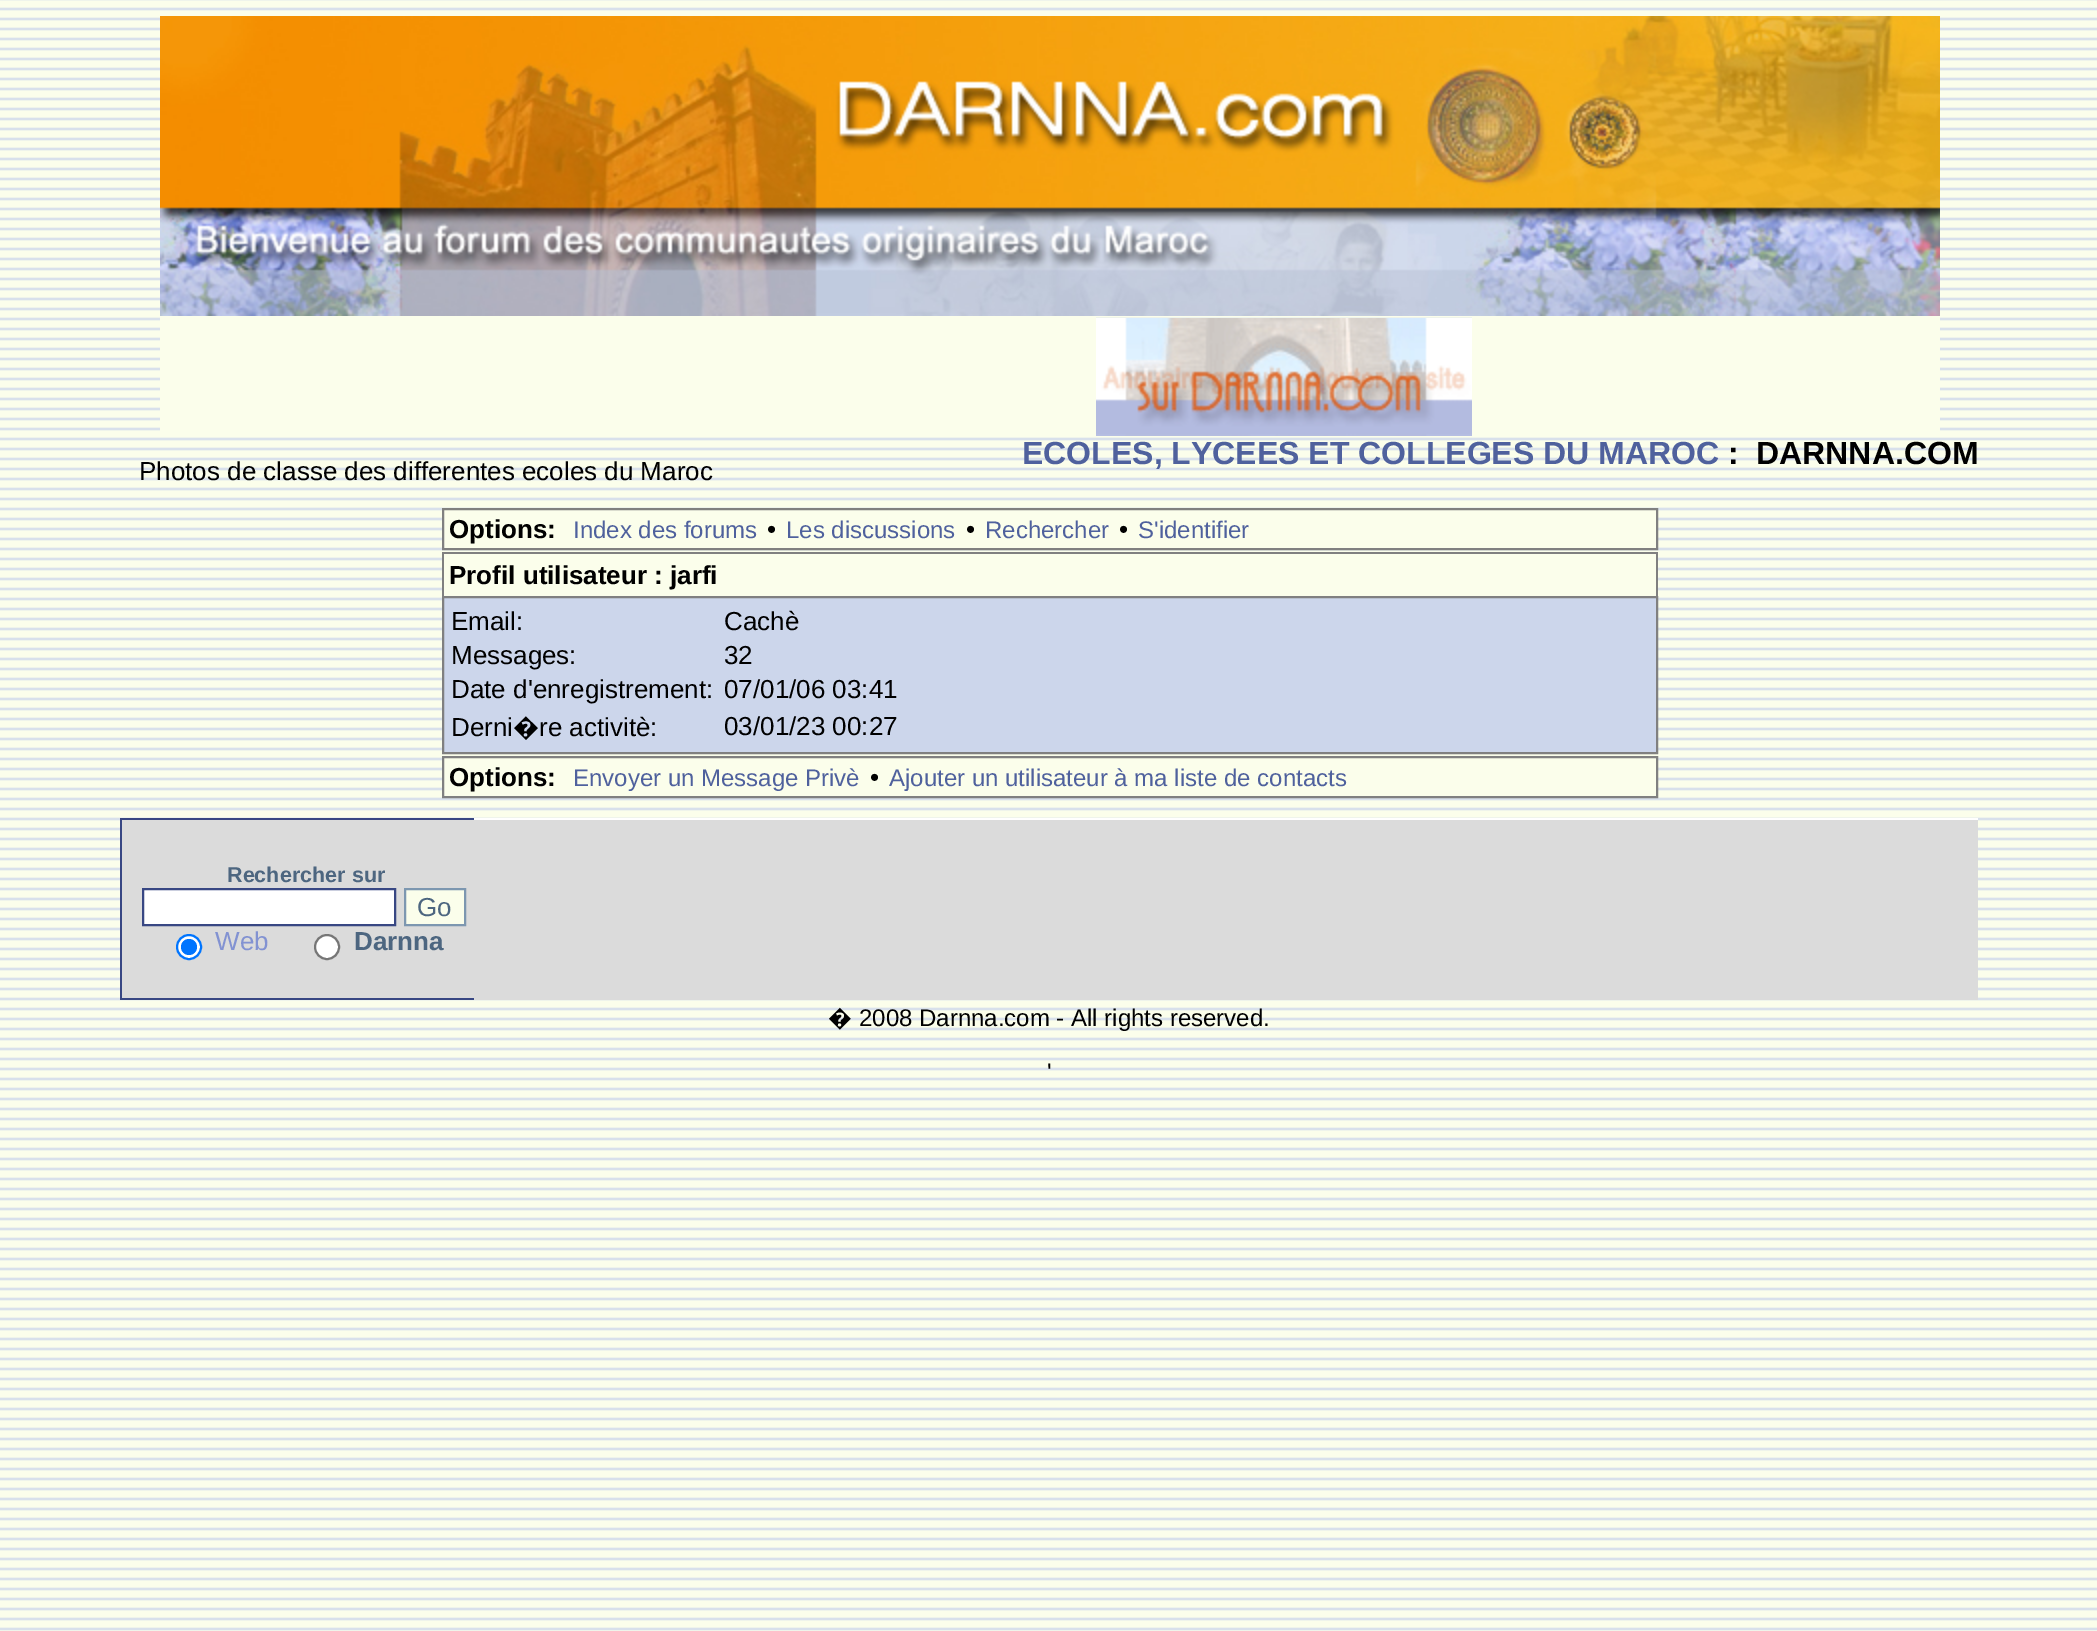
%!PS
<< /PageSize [2097 1631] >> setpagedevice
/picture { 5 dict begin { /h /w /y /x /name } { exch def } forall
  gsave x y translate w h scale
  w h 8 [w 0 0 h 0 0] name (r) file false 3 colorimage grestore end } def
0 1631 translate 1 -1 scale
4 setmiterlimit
1 setgray
0 0 2097 1631 rectfill
(img1.rgb) 0 0 2097 1631 picture
(img2.rgb) 160 16 1780 300 picture
0.984 0.996 0.922 setrgbcolor
160 317 936 114 rectfill
(img3.rgb) 1096 318 376 118 picture
1472 317 468 114 rectfill
/LiberationSans-Bold [32 0 0 -32 0 0] selectfont
0.31 0.38 0.616 setrgbcolor
1022 464 moveto (ECOLES, LYCEES ET COLLEGES DU MAROC) show
0 setgray
1728 464 moveto (:) show
1756 464 moveto (DARNNA.COM) show
/LiberationSans-Regular [26 0 0 -26 0 0] selectfont
139 480 moveto (Photos de classe des differentes ecoles du Maroc) show
0.984 0.996 0.922 setrgbcolor
newpath 443 509 moveto 1657 509 lineto 1657 549 lineto 443 549 lineto closepath gsave fill grestore
0.502 setgray
2 setlinewidth
stroke
/LiberationSans-Bold [26 0 0 -26 0 0] selectfont
0 setgray
449 538 moveto (Options:) show
/LiberationSans-Regular [24 0 0 -24 0 0] selectfont
0.31 0.38 0.616 setrgbcolor
573 538 moveto (Index des forums) show
/LiberationSans-Regular [26 0 0 -26 0 0] selectfont
0 setgray
767 538 moveto (•) show
/LiberationSans-Regular [24 0 0 -24 0 0] selectfont
0.31 0.38 0.616 setrgbcolor
786 538 moveto (Les discussions) show
/LiberationSans-Regular [26 0 0 -26 0 0] selectfont
0 setgray
966 538 moveto (•) show
/LiberationSans-Regular [24 0 0 -24 0 0] selectfont
0.31 0.38 0.616 setrgbcolor
985 538 moveto (Rechercher) show
/LiberationSans-Regular [26 0 0 -26 0 0] selectfont
0 setgray
1119 538 moveto (•) show
/LiberationSans-Regular [24 0 0 -24 0 0] selectfont
0.31 0.38 0.616 setrgbcolor
1138 538 moveto (S'identifier) show
0.984 0.996 0.922 setrgbcolor
444 557 1212 34 rectfill
0.502 setgray
442 552 1216 2 rectfill
1656 552 2 44 rectfill
442 552 2 44 rectfill
/LiberationSans-Bold [26 0 0 -26 0 0] selectfont
0 setgray
449 584 moveto (Profil utilisateur : jarfi) show
0.8 0.839 0.922 setrgbcolor
newpath 443 597 moveto 1657 597 lineto 1657 753 lineto 443 753 lineto closepath gsave fill grestore
0.502 setgray
stroke
/LiberationSans-Regular [26 0 0 -26 0 0] selectfont
0 setgray
451 630 moveto (Email:) show
724 630 moveto (Cachè) show
451 664 moveto (Messages:) show
724 664 moveto (32) show
451 698 moveto (Date d'enregistrement:) show
724 698 moveto (07/01/06 03:41) show
451 736 moveto (Derni) show
/NotoSans-Regular [26 0 0 -26 0 0] selectfont
513 736 moveto (�) show
/LiberationSans-Regular [26 0 0 -26 0 0] selectfont
539 736 moveto (re activitè:) show
724 735 moveto (03/01/23 00:27) show
0.984 0.996 0.922 setrgbcolor
444 758 1212 33 rectfill
0.502 setgray
443 757 1214 40 rectstroke
/LiberationSans-Bold [26 0 0 -26 0 0] selectfont
0 setgray
449 786 moveto (Options:) show
/LiberationSans-Regular [24 0 0 -24 0 0] selectfont
0.31 0.38 0.616 setrgbcolor
573 786 moveto (Envoyer un Message Privè) show
/LiberationSans-Regular [26 0 0 -26 0 0] selectfont
0 setgray
870 786 moveto (•) show
/LiberationSans-Regular [24 0 0 -24 0 0] selectfont
0.31 0.38 0.616 setrgbcolor
889 786 moveto (Ajouter un utilisateur à ma liste de contacts) show
1 setgray
474 818 1504 2 rectfill
0.859 setgray
122 820 352 178 rectfill
0.22 0.278 0.514 setrgbcolor
120 818 354 2 rectfill
120 998 354 2 rectfill
120 818 2 182 rectfill
/LiberationSans-Bold [21.5 0 0 -21.5 0 0] selectfont
0.302 0.4 0.502 setrgbcolor
227 882 moveto (Rechercher) show
352 882 moveto (sur) show
1 setgray
newpath 143 889 moveto 395 889 lineto 395 925 lineto 143 925 lineto closepath gsave fill grestore
0.22 0.278 0.514 setrgbcolor
stroke
0.984 0.996 0.922 setrgbcolor
newpath 405 889 moveto 465 889 lineto 465 925 lineto 405 925 lineto closepath gsave fill grestore
0.49 0.592 0.69 setrgbcolor
stroke
/LiberationSans-Regular [26 0 0 -26 0 0] selectfont
0.302 0.4 0.502 setrgbcolor
417 916 moveto (Go) show
1 setgray
newpath 189 947 12 0 360 arc closepath gsave fill grestore
0 0.459 1 setrgbcolor
stroke
newpath 189 947 8 0 360 arc closepath fill
0.51 0.573 0.824 setrgbcolor
215 950 moveto (Web) show
1 setgray
newpath 327 947 12 0 360 arc closepath gsave fill grestore
0.463 setgray
stroke
/LiberationSans-Bold [26 0 0 -26 0 0] selectfont
0.302 0.4 0.502 setrgbcolor
354 950 moveto (Darnna) show
0.859 setgray
474 820 1504 180 rectfill
/NotoSans-Regular [24 0 0 -24 0 0] selectfont
0 setgray
828 1026 moveto (�) show
/LiberationSans-Regular [24 0 0 -24 0 0] selectfont
859 1026 moveto (2008 Darnna.com - All rights reserved.) show
1047 1080 moveto (') show
showpage
